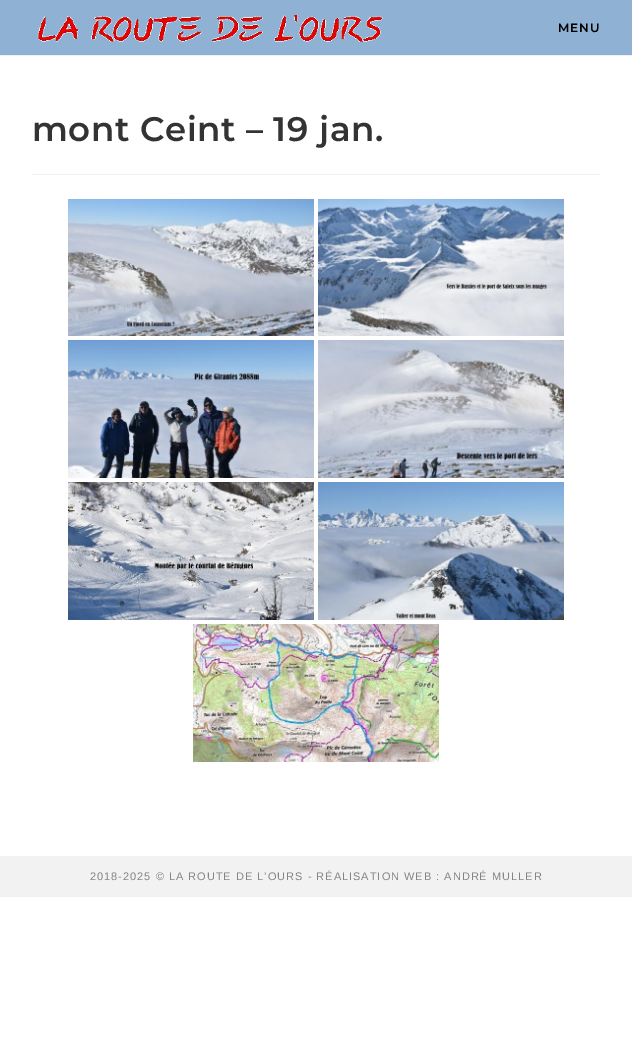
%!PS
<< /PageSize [632 1045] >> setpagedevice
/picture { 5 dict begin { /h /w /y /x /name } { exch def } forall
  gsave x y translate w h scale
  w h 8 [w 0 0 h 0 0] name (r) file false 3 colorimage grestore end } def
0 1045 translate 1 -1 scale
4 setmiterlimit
1 setgray
0 0 632 1045 rectfill
0.557 0.694 0.831 setrgbcolor
0 0 632 55 rectfill
0.945 setgray
0 55 632 1 rectfill
(img1.rgb) 37 15 346 27 picture
/Montserrat-SemiBold [12 0 0 -12 0 0] selectfont
0 setgray
558 32 moveto 1 0 (MENU) ashow
0.945 setgray
32 174 568 1 rectfill
/Montserrat-SemiBold [34 0 0 -34 0 0] selectfont
0.2 setgray
32 141 moveto 0.6 0 (mont Ceint – 19 jan.) ashow
(img2.rgb) 68 199 246 137 picture
(img3.rgb) 318 199 246 137 picture
(img4.rgb) 68 340 246 138 picture
(img5.rgb) 318 340 246 138 picture
(img6.rgb) 68 482 246 138 picture
(img7.rgb) 318 482 246 138 picture
(img8.rgb) 193 624 246 138 picture
0.949 setgray
0 856 632 41 rectfill
/LiberationSans-Regular [11 0 0 -11 0 0] selectfont
0.518 setgray
90 880 moveto 1 0 (2018-2025 © LA ROUTE DE L’OURS - RÉALISATION WEB : ANDRÉ MULLER) ashow
showpage
